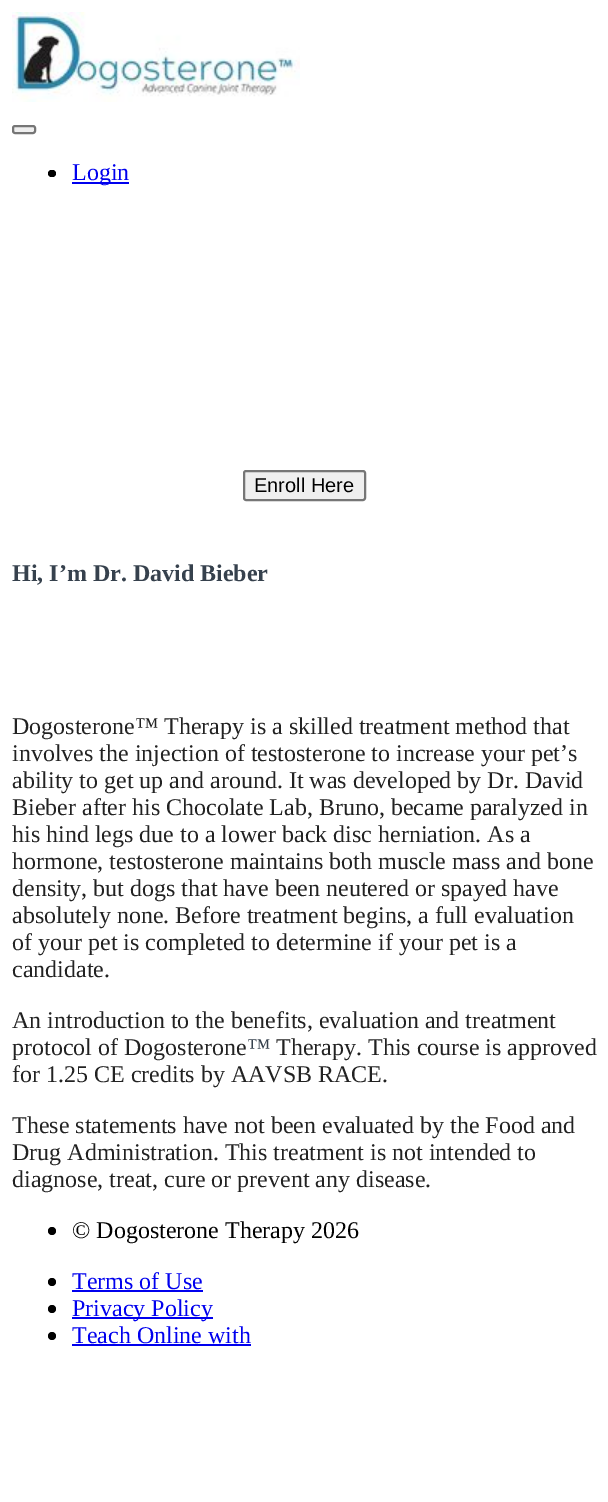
%!PS
<< /PageSize [608 1502] >> setpagedevice
/roundrect { 5 dict begin { /r /h /w /y /x } { exch def } forall
  x r add y moveto x w add y 2 copy h add r arct x w add y h add x 1 index r arct
  x y h add x y r arct x y 2 copy exch w add exch r arct closepath end } def
/picture { 5 dict begin { /h /w /y /x /name } { exch def } forall
  gsave x y translate w h scale
  w h 8 [w 0 0 h 0 0] name (r) file false 3 colorimage grestore end } def
0 1502 translate 1 -1 scale
4 setmiterlimit
1 setgray
0 0 608 1502 rectfill
(img1.rgb) 12 12 288 90 picture
0.937 setgray
13 126 22 7 2 roundrect gsave fill grestore
0.463 setgray
2 setlinewidth
stroke
0 setgray
48 170 8 7 3.5 roundrect fill
0 0 0.933 setrgbcolor
72 182 57 2 rectfill
/LiberationSerif-Regular [24 0 0 -24 0 0] selectfont
72 180 moveto (Login) show
0.937 setgray
244 471 121 29 2 roundrect gsave fill grestore
0.463 setgray
stroke
/LiberationSans-Regular [20 0 0 -20 0 0] selectfont
0 setgray
254 492 moveto (Enroll Here) show
/LiberationSerif-Bold [24 0 0 -24 0 0] selectfont
0.212 0.255 0.302 setrgbcolor
12 581 moveto (Hi, I’m Dr. David Bieber) show
/LiberationSerif-Regular [24 0 0 -24 0 0] selectfont
0.133 setgray
12 734 moveto (Dogosterone™ Therapy is a skilled treatment method that) show
12 761 moveto (involves the injection of testosterone to increase your pet’s) show
12 788 moveto (ability to get up and around. It was developed by Dr. David) show
12 815 moveto (Bieber after his Chocolate Lab, Bruno, became paralyzed in) show
12 842 moveto (his hind legs due to a lower back disc herniation. As a) show
12 869 moveto (hormone, testosterone maintains both muscle mass and bone) show
12 896 moveto (density, but dogs that have been neutered or spayed have) show
12 923 moveto (absolutely none. Before treatment begins, a full evaluation) show
12 950 moveto (of your pet is completed to determine if your pet is a) show
12 977 moveto (candidate.) show
12 1028 moveto (An introduction to the benefits, evaluation and treatment) show
12 1055 moveto (protocol of Dogosterone) show
0.212 0.255 0.302 setrgbcolor
247 1055 moveto (™) show
0.133 setgray
276 1055 moveto (Therapy. This course is approved) show
12 1082 moveto (for 1.25 CE credits by AAVSB RACE.) show
12 1133 moveto (These statements have not been evaluated by the Food and) show
12 1160 moveto (Drug Administration. This treatment is not intended to) show
12 1187 moveto (diagnose, treat, cure or prevent any disease.) show
0 setgray
newpath 52 1231 4 0 360 arc closepath fill
72 1238 moveto (© Dogosterone Therapy 2026) show
newpath 52 1282 4 0 360 arc closepath fill
0 0 0.933 setrgbcolor
72 1289 moveto (Terms of Use) show
72 1290 131 2 rectfill
0 setgray
newpath 52 1309 4 0 360 arc closepath fill
0 0 0.933 setrgbcolor
72 1317 141 2 rectfill
72 1316 moveto (Privacy Policy) show
0 setgray
newpath 52 1336 4 0 360 arc closepath fill
0 0 0.933 setrgbcolor
72 1343 moveto (Teach Online with) show
72 1344 179 2 rectfill
showpage
